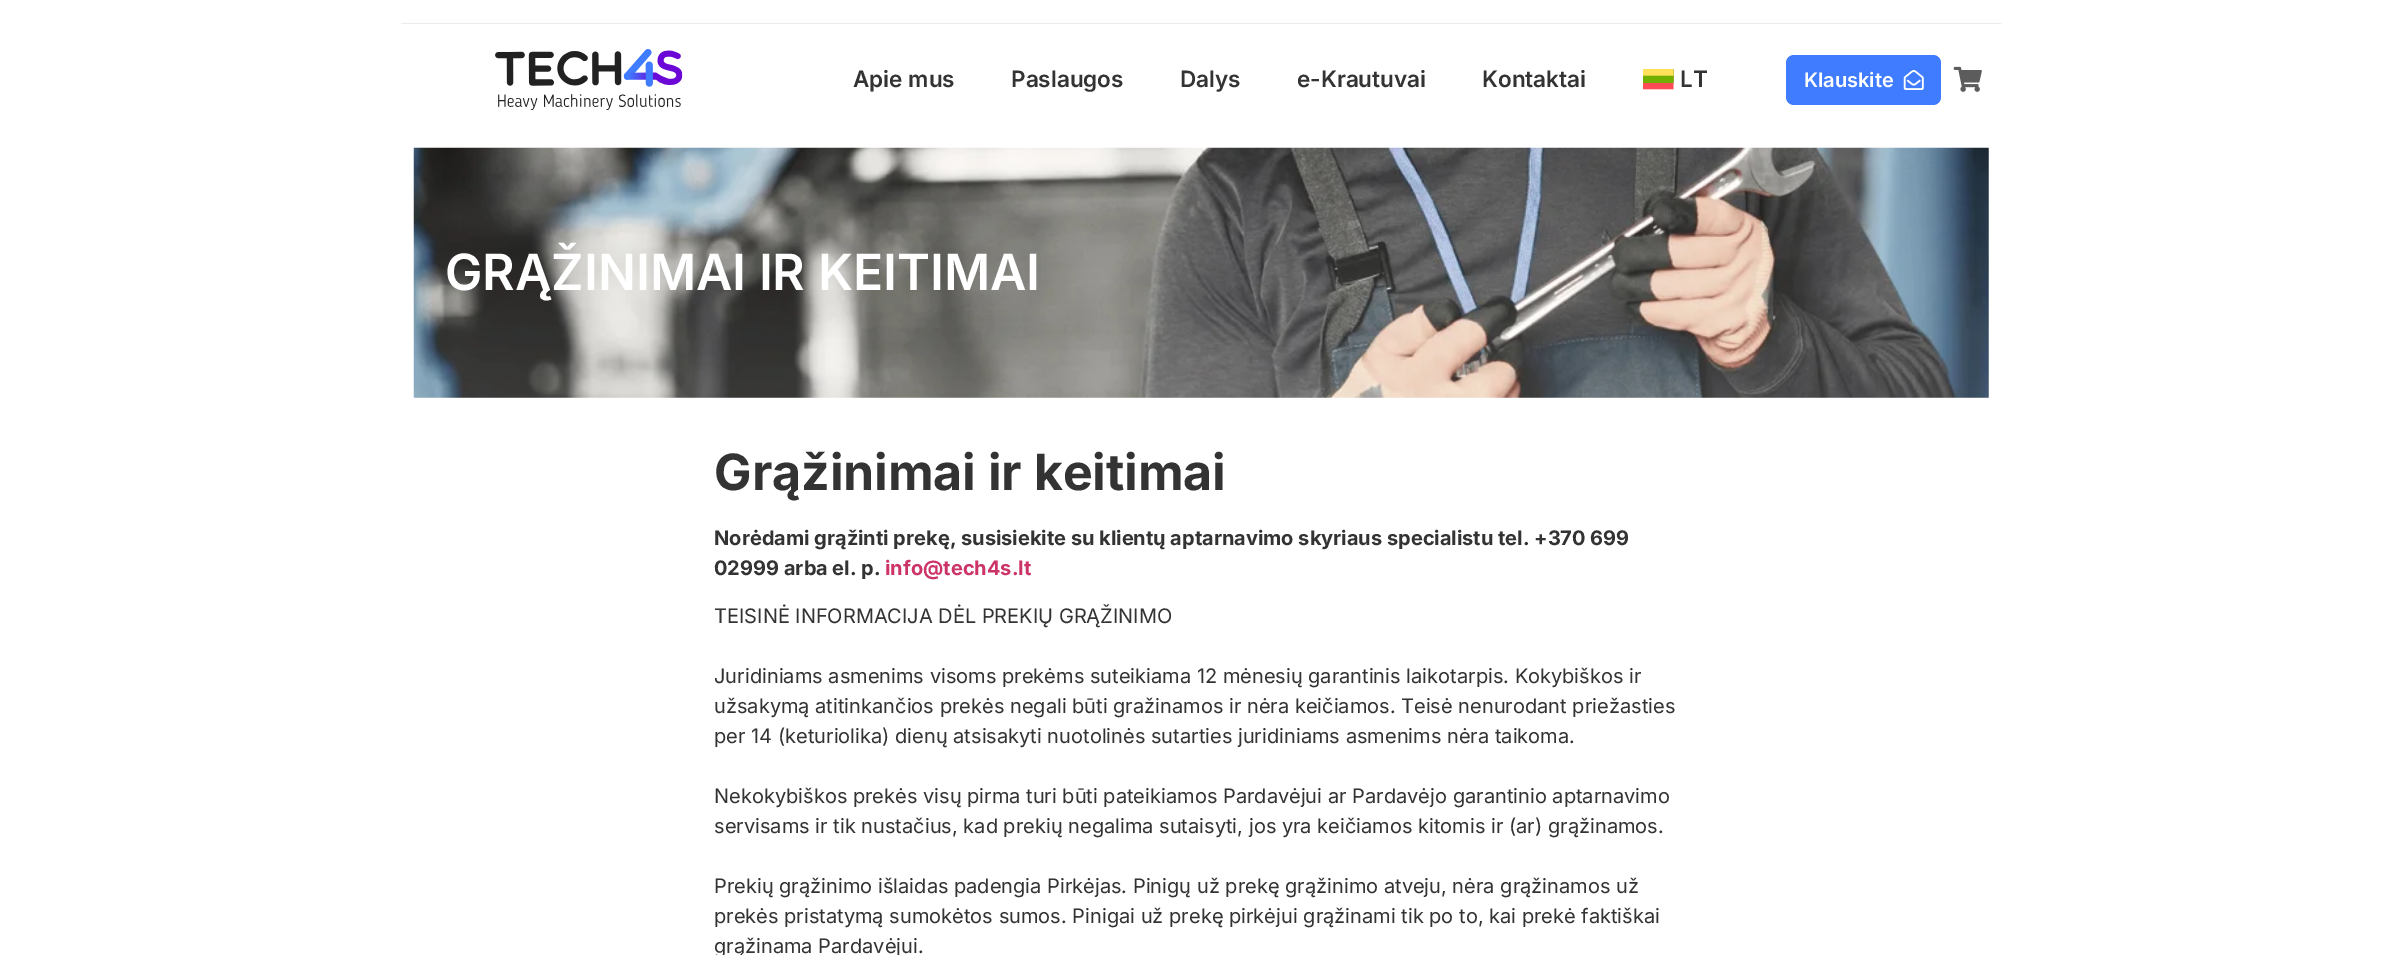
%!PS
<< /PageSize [2402 955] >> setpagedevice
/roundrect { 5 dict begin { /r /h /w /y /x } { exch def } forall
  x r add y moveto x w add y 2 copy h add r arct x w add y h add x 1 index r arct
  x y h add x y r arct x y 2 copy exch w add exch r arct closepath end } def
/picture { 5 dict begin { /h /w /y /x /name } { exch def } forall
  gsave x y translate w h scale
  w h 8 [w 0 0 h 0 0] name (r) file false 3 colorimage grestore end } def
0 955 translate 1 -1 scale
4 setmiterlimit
1 setgray
0 0 2402 955 rectfill
0.922 setgray
401 23 1600 1 rectfill
(img1.rgb) 495 49 188 61 picture
/Inter-SemiBold [22.5 0 0 -22.5 0 0] selectfont
0.2 setgray
853 87 moveto (Apie mus) show
1011 87 moveto (Paslaugos) show
1180 87 moveto (Dalys) show
1297 87 moveto (e-Krautuvai) show
1482 87 moveto (Kontaktai) show
(img2.rgb) 1643 69 31 21 picture
1680 87 moveto (LT) show
0.247 0.486 1 setrgbcolor
1786 55 155 50 8 roundrect fill
/Inter-SemiBold [20 0 0 -20 0 0] selectfont
1 setgray
1804 87 moveto (Klauskite) show
(img3.rgb) 1903 70 21 20 picture
(img4.rgb) 1953 66 29 26 picture
(img5.rgb) 413 147 1576 251 picture
/Inter-SemiBold [50 0 0 -50 0 0] selectfont
445 290 moveto (GRĄŽINIMAI IR KEITIMAI) show
/Inter-Bold [50 0 0 -50 0 0] selectfont
0.2 setgray
714 490 moveto (Grąžinimai ir keitimai) show
/Inter-Bold [20 0 0 -20 0 0] selectfont
714 545 moveto (Norėdami grąžinti prekę, susisiekite su klientų aptarnavimo skyriaus specialistu tel. +370 699) show
714 575 moveto (02999 arba el. p.) show
0.8 0.2 0.4 setrgbcolor
885 575 moveto (info@tech4s.lt) show
/Inter-Regular [20 0 0 -20 0 0] selectfont
0.2 setgray
714 623 moveto (TEISINĖ INFORMACIJA DĖL PREKIŲ GRĄŽINIMO) show
714 683 moveto (Juridiniams asmenims visoms prekėms suteikiama 12 mėnesių garantinis laikotarpis. Kokybiškos ir) show
714 713 moveto (užsakymą atitinkančios prekės negali būti gražinamos ir nėra keičiamos. Teisė nenurodant priežasties) show
714 743 moveto (per 14 \(keturiolika\) dienų atsisakyti nuotolinės sutarties juridiniams asmenims nėra taikoma.) show
714 803 moveto (Nekokybiškos prekės visų pirma turi būti pateikiamos Pardavėjui ar Pardavėjo garantinio aptarnavimo) show
714 833 moveto (servisams ir tik nustačius, kad prekių negalima sutaisyti, jos yra keičiamos kitomis ir \(ar\) grąžinamos.) show
714 893 moveto (Prekių grąžinimo išlaidas padengia Pirkėjas. Pinigų už prekę grąžinimo atveju, nėra grąžinamos už) show
714 923 moveto (prekės pristatymą sumokėtos sumos. Pinigai už prekę pirkėjui grąžinami tik po to, kai prekė faktiškai) show
714 953 moveto (grąžinama Pardavėjui.) show
showpage
